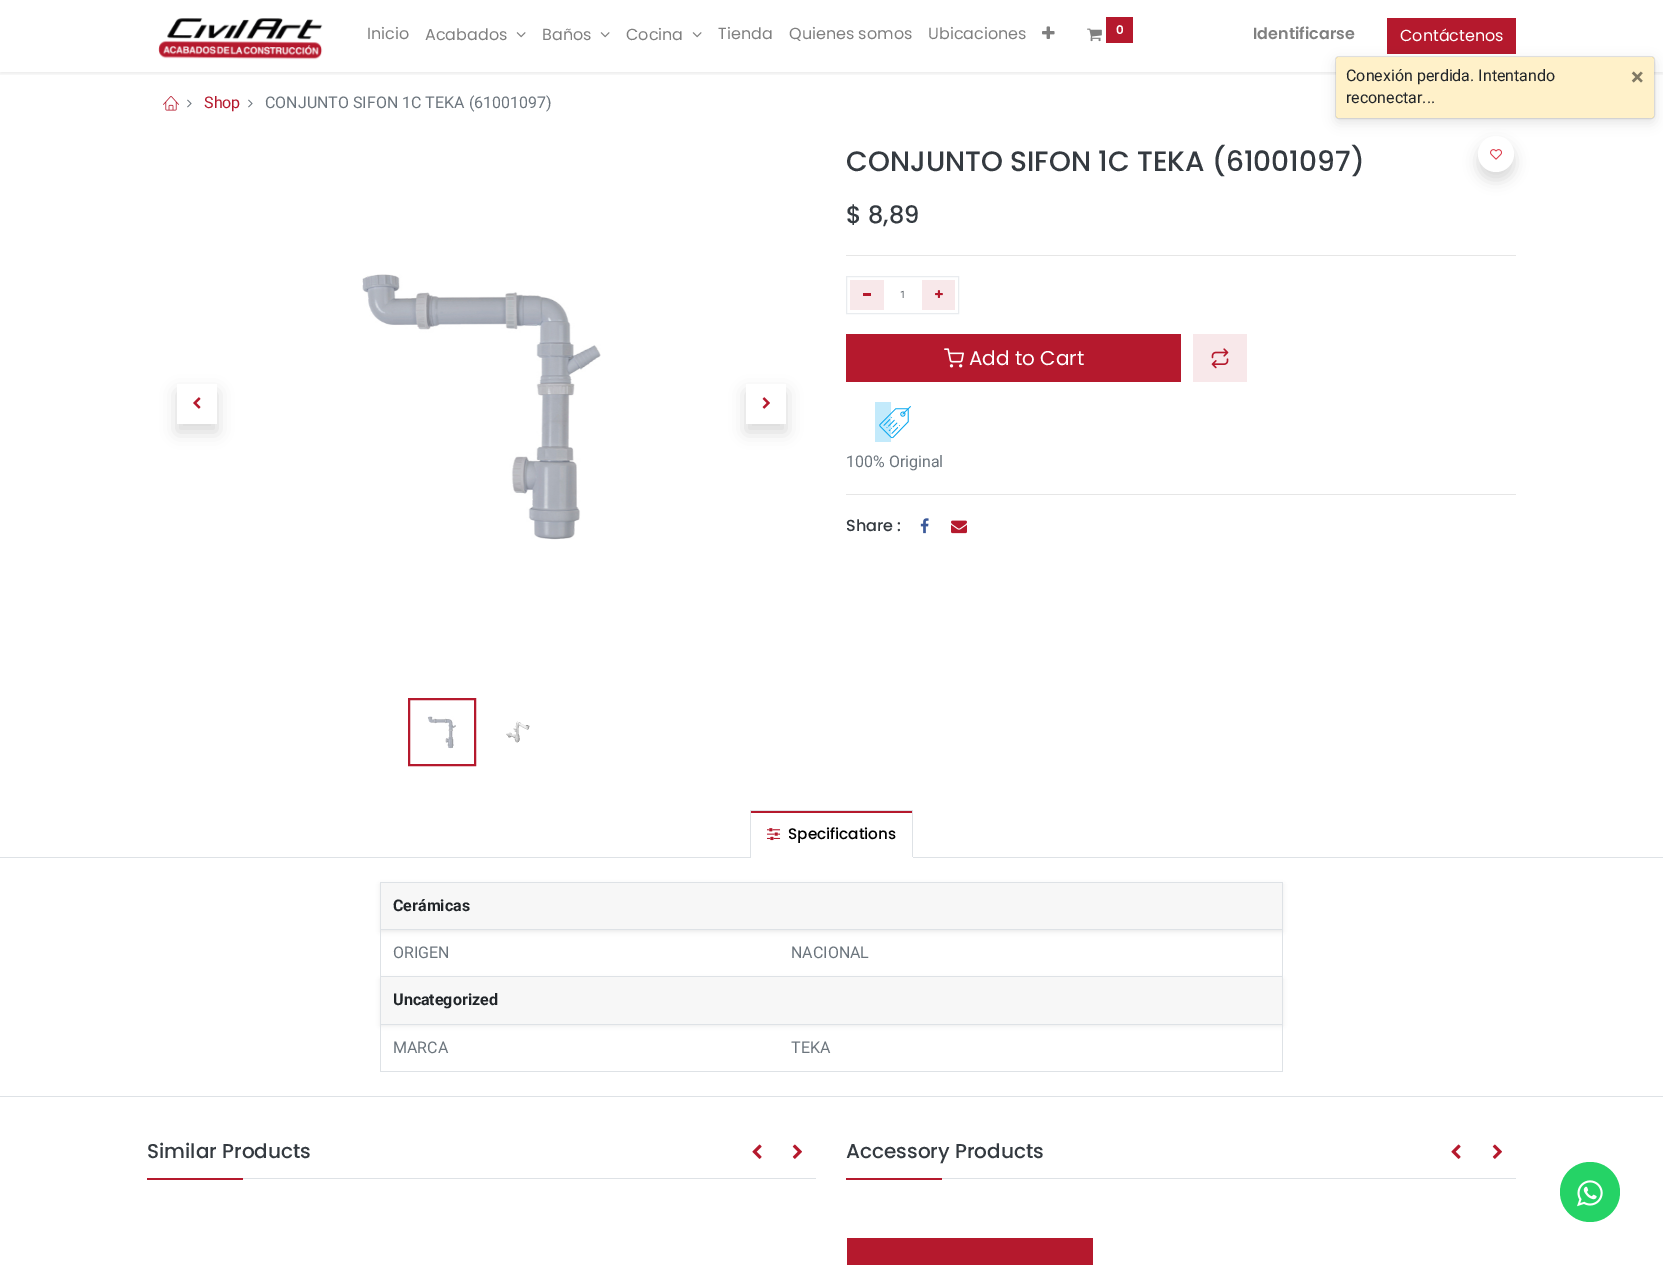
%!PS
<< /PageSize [1663 1265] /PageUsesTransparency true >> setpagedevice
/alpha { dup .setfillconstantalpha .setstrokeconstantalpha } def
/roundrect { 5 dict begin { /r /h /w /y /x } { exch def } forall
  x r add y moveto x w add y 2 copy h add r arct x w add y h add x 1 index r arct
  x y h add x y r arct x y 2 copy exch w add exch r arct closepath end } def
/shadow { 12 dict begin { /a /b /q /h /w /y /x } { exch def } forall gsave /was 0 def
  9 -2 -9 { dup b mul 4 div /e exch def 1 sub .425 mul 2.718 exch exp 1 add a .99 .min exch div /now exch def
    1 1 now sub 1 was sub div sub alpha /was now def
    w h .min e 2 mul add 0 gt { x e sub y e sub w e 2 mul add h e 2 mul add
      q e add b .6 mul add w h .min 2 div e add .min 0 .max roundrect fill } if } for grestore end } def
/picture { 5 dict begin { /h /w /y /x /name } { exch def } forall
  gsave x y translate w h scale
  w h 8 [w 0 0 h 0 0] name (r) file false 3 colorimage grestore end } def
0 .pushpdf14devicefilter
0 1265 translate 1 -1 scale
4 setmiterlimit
1 setgray
0 0 1663 1265 rectfill
gsave
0 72 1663 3 rectclip
0 setgray
0 2 1663 72 0 2 0.07 shadow
grestore
(img1.rgb) 158 18 165 42 picture
/Poppins-Regular [16 0 0 -16 0 0] selectfont
0.502 setgray
367 39 moveto (Inicio) show
425 40 moveto (Acabados) show
(img2.rgb) 516 32 10 6 picture
542 40 moveto (Baños) show
(img2.rgb) 600 32 10 6 picture
626 40 moveto (Cocina) show
(img2.rgb) 692 32 10 6 picture
718 39 moveto (Tienda) show
789 39 moveto (Quienes somos) show
928 39 moveto (Ubicaciones) show
(img3.rgb) 1042 26 13 13 picture
(img4.rgb) 1087 28 15 14 picture
0.71 0.098 0.176 setrgbcolor
1106 17 27 26 rectfill
/Poppins-SemiBold [12 0 0 -12 0 0] selectfont
1 setgray
1116 34 moveto (0) show
/Poppins-SemiBold [16 0 0 -16 0 0] selectfont
0.502 setgray
1253 39 moveto (Identificarse) show
0.71 0.098 0.176 setrgbcolor
1387 18 129 36 rectfill
/Poppins-Regular [16 0 0 -16 0 0] selectfont
1 setgray
1400 41 moveto (Contáctenos) show
(img5.rgb) 163 96 16 15 picture
(img6.rgb) 187 99 5 9 picture
/Roboto-Regular [16 0 0 -16 0 0] selectfont
0.71 0.098 0.176 setrgbcolor
204 108 moveto (Shop) show
(img6.rgb) 248 99 5 9 picture
0.424 0.459 0.49 setrgbcolor
265 108 moveto (CONJUNTO SIFON 1C TEKA \(61001097\)) show
gsave
newpath 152 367 moveto 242 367 lineto 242 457 lineto 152 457 lineto closepath 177 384 moveto 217 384 lineto 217 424 lineto 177 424 lineto closepath eoclip newpath
0 setgray
177 392 40 40 0 8 0.15 shadow
grestore
(img7.rgb) 193 397 8 12 picture
(img8.rgb) 362 274 239 266 picture
gsave
newpath 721 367 moveto 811 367 lineto 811 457 lineto 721 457 lineto closepath 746 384 moveto 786 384 lineto 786 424 lineto 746 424 lineto closepath eoclip newpath
0 setgray
746 392 40 40 0 8 0.15 shadow
grestore
(img9.rgb) 762 397 8 12 picture
0.71 0.098 0.176 setrgbcolor
2 setlinewidth
409 699 66 66 rectstroke
(img10.rgb) 427 716 29 33 picture
(img11.rgb) 506 721 24 22 picture
/Poppins-Medium [28 0 0 -28 0 0] selectfont
0.204 0.227 0.251 setrgbcolor
846 171 moveto (CONJUNTO SIFON 1C TEKA \(61001097\)) show
/Poppins-Medium [24 0 0 -24 0 0] selectfont
846 223 moveto ($ 8,89) show
0.902 setgray
846 255 670 1 rectfill
0.914 0.925 0.937 setrgbcolor
1 setlinewidth
846.5 276.5 112 37 rectstroke
0.973 0.91 0.918 setrgbcolor
850 280 34 30 rectfill
0.71 0.098 0.176 setrgbcolor
863 293 8 3 rectfill
/Roboto-Regular [10 0 0 -10 0 0] selectfont
0.286 0.314 0.341 setrgbcolor
900 298 moveto (1) show
0.973 0.91 0.918 setrgbcolor
922 280 33 30 rectfill
(img12.rgb) 935 290 8 8 picture
0 setgray
1478 144 36 36 18 7 0.15 shadow
1 setgray
newpath 1496 154 18 0 360 arc closepath fill
(img13.rgb) 1490 149 12 11 picture
0.71 0.098 0.176 setrgbcolor
846 334 335 48 rectfill
(img14.rgb) 944 348 20 20 picture
/Poppins-Regular [20 0 0 -20 0 0] selectfont
1 setgray
969 365 moveto (Add to Cart) show
0.973 0.91 0.918 setrgbcolor
1193 334 54 48 rectfill
(img15.rgb) 1211 348 18 21 picture
(img16.rgb) 875 402 36 40 picture
/Roboto-Regular [16 0 0 -16 0 0] selectfont
0.424 0.459 0.49 setrgbcolor
846 467 moveto (100% Original) show
0.902 setgray
846 494 670 1 rectfill
/Poppins-Medium [16 0 0 -16 0 0] selectfont
0.204 0.227 0.251 setrgbcolor
846 531 moveto (Share :) show
(img17.rgb) 920 518 9 16 picture
(img18.rgb) 951 520 16 14 picture
0.871 0.886 0.902 setrgbcolor
0 857 1663 1 rectfill
0.71 0.098 0.176 setrgbcolor
751 811 161 2 rectfill
0.871 0.886 0.902 setrgbcolor
750 810 163 1 rectfill
912 810 1 48 rectfill
1 setgray
750 857 163 1 rectfill
0.871 0.886 0.902 setrgbcolor
750 810 1 48 rectfill
(img19.rgb) 767 828 14 13 picture
/Poppins-Medium [15.25 0 0 -15.25 0 0] selectfont
0 setgray
788 839 moveto (Specifications) show
0.871 0.886 0.902 setrgbcolor
0 1096 1663 1 rectfill
0 setgray
380 884 903 48 0 2 0.07 shadow
0.871 0.886 0.902 setrgbcolor
380 882 903 1 rectfill
0 setgray
380 979 903 47 0 2 0.07 shadow
0.871 0.886 0.902 setrgbcolor
1282 882 1 190 rectfill
380 1071 903 1 rectfill
380 882 1 190 rectfill
0.969 setgray
381 884 901 45 rectfill
/Roboto-Bold [16 0 0 -16 0 0] selectfont
0.129 0.145 0.161 setrgbcolor
393 911 moveto (Cerámicas) show
/Roboto-Regular [16 0 0 -16 0 0] selectfont
0.424 0.459 0.49 setrgbcolor
393 958 moveto (ORIGEN) show
0.871 0.886 0.902 setrgbcolor
380 929 903 1 rectfill
0.424 0.459 0.49 setrgbcolor
791 958 moveto (NACIONAL) show
0.969 setgray
381 977 901 47 rectfill
0.871 0.886 0.902 setrgbcolor
380 976 903 1 rectfill
/Roboto-Bold [16 0 0 -16 0 0] selectfont
0.129 0.145 0.161 setrgbcolor
393 1005 moveto (Uncategorized) show
/Roboto-Regular [16 0 0 -16 0 0] selectfont
0.424 0.459 0.49 setrgbcolor
393 1053 moveto (MARCA) show
0.871 0.886 0.902 setrgbcolor
380 1024 903 1 rectfill
0.424 0.459 0.49 setrgbcolor
791 1053 moveto (TEKA) show
0.871 0.886 0.902 setrgbcolor
243 1178 573 1 rectfill
/Poppins-Medium [20 0 0 -20 0 0] selectfont
0.204 0.227 0.251 setrgbcolor
147 1158 moveto (Similar Products) show
0.71 0.098 0.176 setrgbcolor
147 1178 96 2 rectfill
(img20.rgb) 752 1144 10 15 picture
(img21.rgb) 792 1144 10 15 picture
0.871 0.886 0.902 setrgbcolor
942 1178 574 1 rectfill
0.204 0.227 0.251 setrgbcolor
846 1158 moveto (Accessory Products) show
0.71 0.098 0.176 setrgbcolor
846 1178 96 2 rectfill
(img20.rgb) 1451 1144 10 15 picture
(img21.rgb) 1492 1144 10 15 picture
847 1238 246 27 rectfill
0.145 0.827 0.4 setrgbcolor
newpath 1590 1192 30 0 360 arc closepath fill
(img22.rgb) 1577 1180 26 27 picture
0 setgray
1335 60 320 63 4 6 0.1 shadow
1 0.757 0.027 setrgbcolor
1336 57 318 61 3 roundrect fill
0.1 alpha
0 setgray
1335.5 56.5 319 62 3.5 roundrect stroke
0.78 alpha
1 setgray
1336 57 318 61 3 roundrect fill
/Roboto-Regular [16 0 0 -16 0 0] selectfont
1 alpha
0.129 0.145 0.161 setrgbcolor
1346 81 moveto (Conexión perdida. Intentando) show
1346 103 moveto (reconectar...) show
/Roboto-Bold [24 0 0 -24 0 0] selectfont
0.502 0.475 0.392 setrgbcolor
1631 85 moveto (×) show
.poppdf14devicefilter showpage
